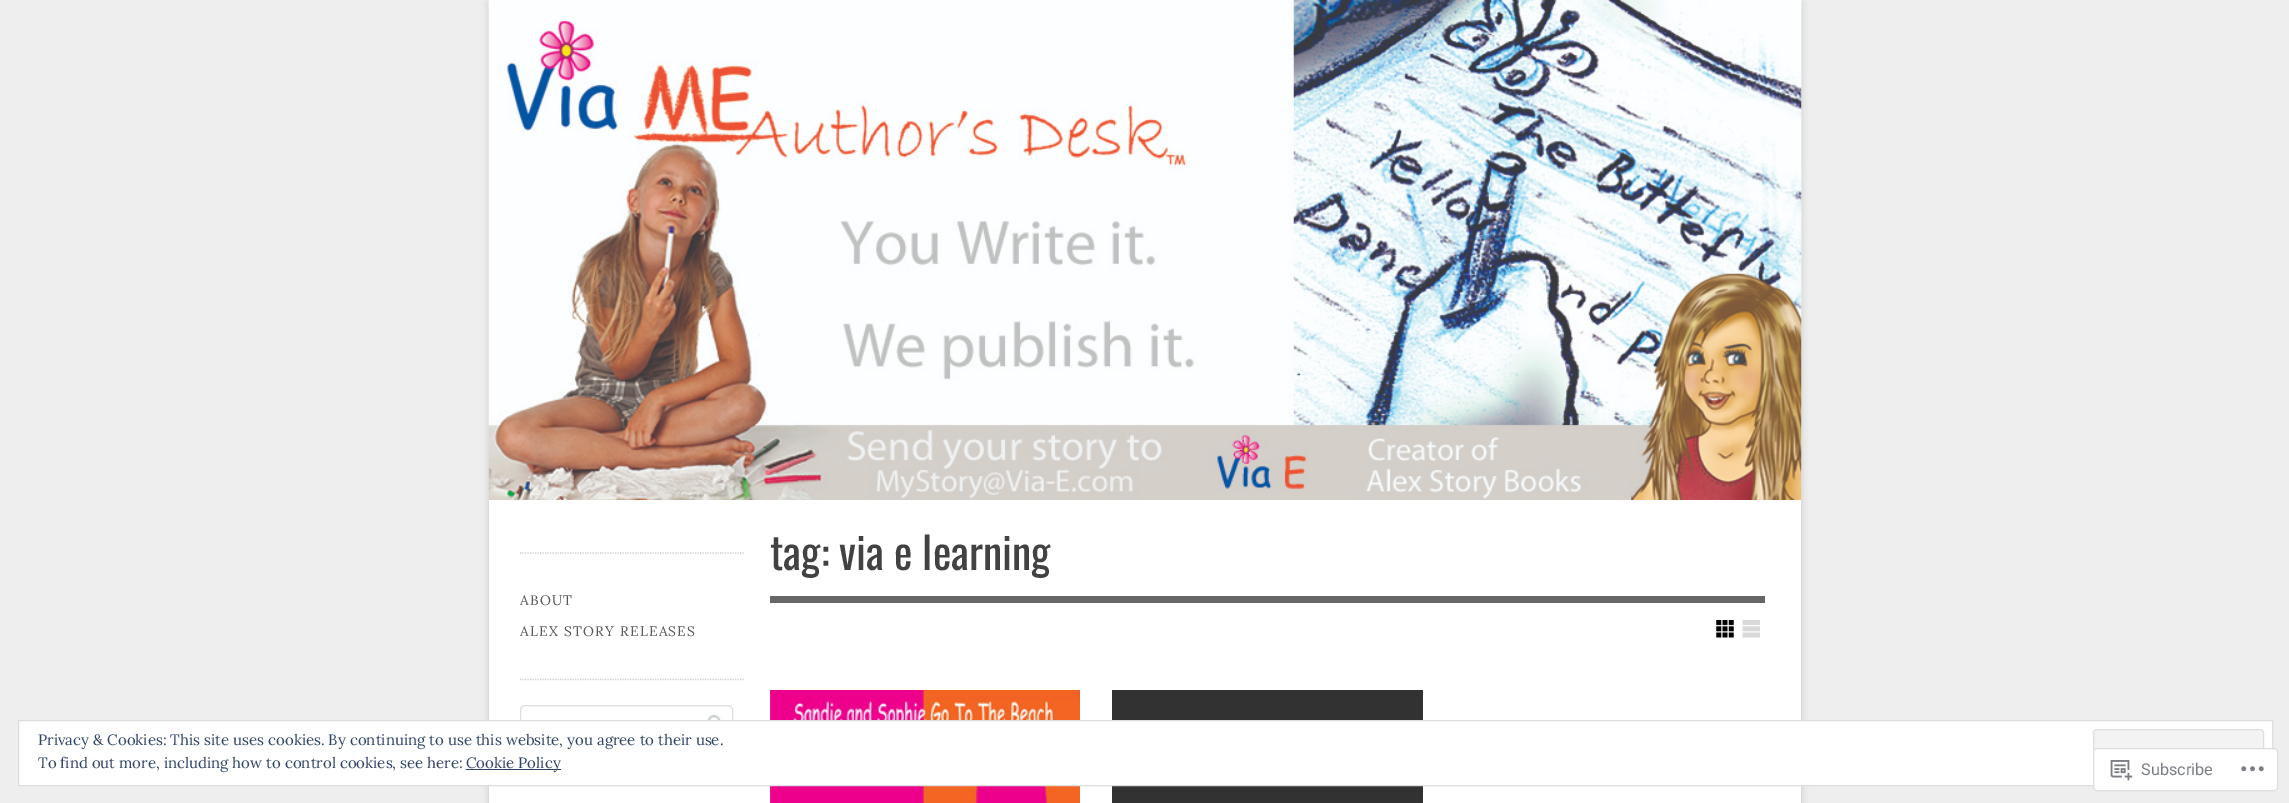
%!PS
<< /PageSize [2289 803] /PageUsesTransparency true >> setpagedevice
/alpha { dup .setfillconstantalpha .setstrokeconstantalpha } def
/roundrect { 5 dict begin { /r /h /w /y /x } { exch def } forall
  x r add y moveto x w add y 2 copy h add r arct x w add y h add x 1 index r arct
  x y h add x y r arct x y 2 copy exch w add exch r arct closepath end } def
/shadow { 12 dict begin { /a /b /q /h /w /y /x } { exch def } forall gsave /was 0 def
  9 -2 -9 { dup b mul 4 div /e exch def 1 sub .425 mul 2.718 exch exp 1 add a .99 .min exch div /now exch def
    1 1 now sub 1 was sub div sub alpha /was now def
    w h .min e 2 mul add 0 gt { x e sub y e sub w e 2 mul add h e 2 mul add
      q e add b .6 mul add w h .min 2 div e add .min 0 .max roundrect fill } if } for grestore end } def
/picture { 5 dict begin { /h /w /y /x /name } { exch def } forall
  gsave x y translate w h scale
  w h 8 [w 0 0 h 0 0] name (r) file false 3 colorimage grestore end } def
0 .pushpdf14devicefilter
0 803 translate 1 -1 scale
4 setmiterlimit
0.933 setgray
0 0 2289 803 rectfill
0.392 setgray
489 3 1312 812 0 4 0.3 shadow
1 setgray
489 500 1312 303 rectfill
(img1.rgb) 488 0 1314 500 picture
0.4 setgray
770 596 995 7 rectfill
/Oswald-Regular [43.75 0 0 -43.75 0 0] selectfont
0.259 setgray
770 570 moveto (tag: via e learning) show
(img2.rgb) 1716 620 18 18 picture
(img3.rgb) 1742 620 18 18 picture
(img4.rgb) 770 690 310 113 picture
0.196 setgray
1112 690 311 113 rectfill
0.8 setgray
1.2 setlinewidth
[1.25 1.25] 0 setdash
newpath 520 553 moveto 745 553 lineto stroke
newpath 520 679.5 moveto 745 679.5 lineto stroke
/Lora-Regular [13.75 0 0 -13.75 0 0] selectfont
0.333 setgray
520 605 moveto 1.25 0 (ABOUT) ashow
520 636 moveto 1.25 0 (ALEX STORY RELEASES) ashow
(img5.rgb) 707 715 15 5 picture
0.867 setgray
1 setlinewidth
[] 0 setdash
520.5 705.5 212 37 4.5 roundrect stroke
1 setgray
newpath 18.5 720.5 moveto 2272.5 720.5 lineto 2272.5 785.5 lineto 18.5 785.5 lineto closepath gsave fill grestore
0.871 setgray
stroke
/Lora-Regular [15 0 0 -15 0 0] selectfont
0.18 0.267 0.404 setrgbcolor
38 745 moveto (Privacy & Cookies: This site uses cookies. By continuing to use this website, you agree to their use.) show
0.953 setgray
2093.5 729.5 170 48 3.5 roundrect gsave fill grestore
0.871 setgray
stroke
0.18 0.267 0.404 setrgbcolor
38 768 moveto (To find out more, including how to control cookies, see here:) show
466 769 95 1 rectfill
466 768 moveto (Cookie Policy) show
0.98 alpha
1 setgray
2093 748 185 43 4 roundrect fill
0.863 0.863 0.871 setrgbcolor
2093.5 748.5 184 42 3.5 roundrect stroke
1 alpha
(img6.rgb) 2110 760 23 21 picture
/Roboto-Regular [16.25 0 0 -16.25 0 0] selectfont
0.478 0.494 0.518 setrgbcolor
2141 775 moveto (Subscribe) show
(img7.rgb) 2241 766 23 6 picture
.poppdf14devicefilter showpage
